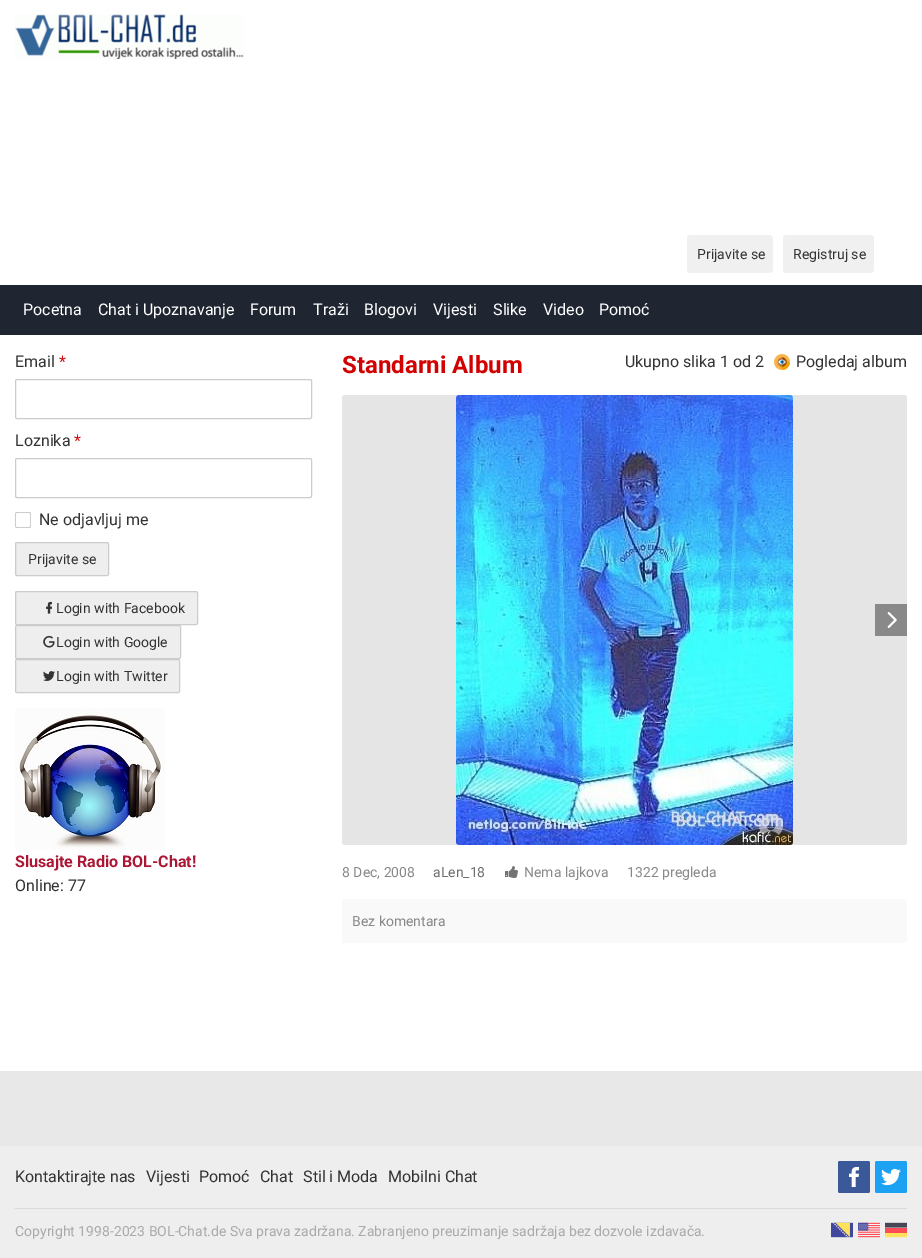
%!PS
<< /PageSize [922 1258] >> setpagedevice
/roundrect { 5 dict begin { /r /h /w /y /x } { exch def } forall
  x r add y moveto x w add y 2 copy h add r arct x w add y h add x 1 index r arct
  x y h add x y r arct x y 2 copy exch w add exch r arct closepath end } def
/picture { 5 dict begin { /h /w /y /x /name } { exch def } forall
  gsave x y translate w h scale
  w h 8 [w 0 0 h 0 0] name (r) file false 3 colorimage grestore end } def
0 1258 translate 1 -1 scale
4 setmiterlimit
0.91 setgray
0 0 922 1258 rectfill
1 setgray
0 0 922 285 rectfill
(img1.rgb) 15 14 229 45 picture
0.122 0.149 0.196 setrgbcolor
0 285 922 50 rectfill
0.941 setgray
687 235 86 38 4 roundrect fill
/Roboto-Regular [14 0 0 -14 0 0] selectfont
0.2 setgray
697 259 moveto (Prijavite se) show
0.941 setgray
783 235 91 38 4 roundrect fill
0.2 setgray
793 259 moveto (Registruj se) show
/Roboto-Regular [16 0 0 -16 0 0] selectfont
1 setgray
23 315 moveto (Pocetna) show
98 315 moveto (Chat i Upoznavanje) show
250 315 moveto (Forum) show
313 315 moveto (Traži) show
364 315 moveto (Blogovi) show
433 315 moveto (Vijesti) show
493 315 moveto (Slike) show
543 315 moveto (Video) show
599 315 moveto (Pomoć) show
0 335 922 736 rectfill
0.2 setgray
15 367 moveto (Email) show
0.816 0.055 0.071 setrgbcolor
59 367 moveto (*) show
0.8 setgray
15.5 379.5 296 39 1.5 roundrect stroke
0.2 setgray
15 446 moveto (Loznika) show
0.816 0.055 0.071 setrgbcolor
74 446 moveto (*) show
0.8 setgray
15.5 458.5 296 39 1.5 roundrect stroke
(img2.rgb) 15 512 16 16 picture
0.2 setgray
39 525 moveto (Ne odjavljuj me) show
0.933 setgray
15.5 542.5 93 33 1.5 roundrect gsave fill grestore
0.8 setgray
stroke
/Roboto-Regular [14 0 0 -14 0 0] selectfont
0.2 setgray
28 564 moveto (Prijavite se) show
0.933 setgray
15.5 591.5 182 33 1.5 roundrect gsave fill grestore
0.8 setgray
stroke
(img3.rgb) 46 601 6 13 picture
0.2 setgray
56 613 moveto (Login with Facebook) show
0.933 setgray
15.5 625.5 165 33 1.5 roundrect gsave fill grestore
0.8 setgray
stroke
(img4.rgb) 43 635 12 13 picture
0.2 setgray
56 647 moveto (Login with Google) show
0.933 setgray
15.5 659.5 164 33 1.5 roundrect gsave fill grestore
0.8 setgray
stroke
(img5.rgb) 43 671 12 10 picture
0.2 setgray
56 681 moveto (Login with Twitter) show
(img6.rgb) 15 708 150 142 picture
/Roboto-Bold [16 0 0 -16 0 0] selectfont
0.671 0.086 0.204 setrgbcolor
15 867 moveto (Slusajte Radio BOL-Chat!) show
/Roboto-Regular [16 0 0 -16 0 0] selectfont
0.2 setgray
15 891 moveto (Online: 77) show
/Roboto-Bold [24 0 0 -24 0 0] selectfont
0.824 0 0 setrgbcolor
342 373 moveto (Standarni Album) show
/Roboto-Regular [16 0 0 -16 0 0] selectfont
0.2 setgray
625 367 moveto (Ukupno slika 1 od 2) show
(img7.rgb) 774 354 16 16 picture
796 367 moveto (Pogledaj album) show
0.898 setgray
342 395 565 450 3 roundrect fill
(img8.rgb) 456 395 337 450 picture
0.537 setgray
875 604 32 32 rectfill
(img9.rgb) 887 612 10 16 picture
/Roboto-Regular [14 0 0 -14 0 0] selectfont
0.533 setgray
342 877 moveto (8 Dec, 2008) show
0.435 setgray
433 877 moveto (aLen_18) show
(img10.rgb) 505 866 13 12 picture
0.533 setgray
524 877 moveto (Nema lajkova) show
627 877 moveto (1322 pregleda) show
0.976 setgray
342 899 565 45 3 roundrect fill
1 setgray
342 943 565 1 rectfill
0.533 setgray
352 926 moveto (Bez komentara) show
0.933 setgray
0 1146 922 112 rectfill
/Roboto-Regular [16 0 0 -16 0 0] selectfont
0.2 setgray
15 1182 moveto (Kontaktirajte nas) show
146 1182 moveto (Vijesti) show
199 1182 moveto (Pomoć) show
260 1182 moveto (Chat) show
303 1182 moveto (Stil i Moda) show
388 1182 moveto (Mobilni Chat) show
0.231 0.349 0.596 setrgbcolor
838 1161 32 32 2 roundrect fill
(img11.rgb) 849 1167 10 20 picture
0.114 0.631 0.949 setrgbcolor
875 1161 32 32 2 roundrect fill
(img12.rgb) 881 1168 20 18 picture
0.855 setgray
15 1208 892 1 rectfill
/Roboto-Regular [14 0 0 -14 0 0] selectfont
0.667 setgray
15 1236 moveto (Copyright 1998-2023 BOL-Chat.de Sva prava zadržana. Zabranjeno preuzimanje sadržaja bez dozvole izdavača.) show
(img13.rgb) 831 1222 22 16 picture
(img14.rgb) 858 1222 22 16 picture
(img15.rgb) 885 1222 22 16 picture
showpage
